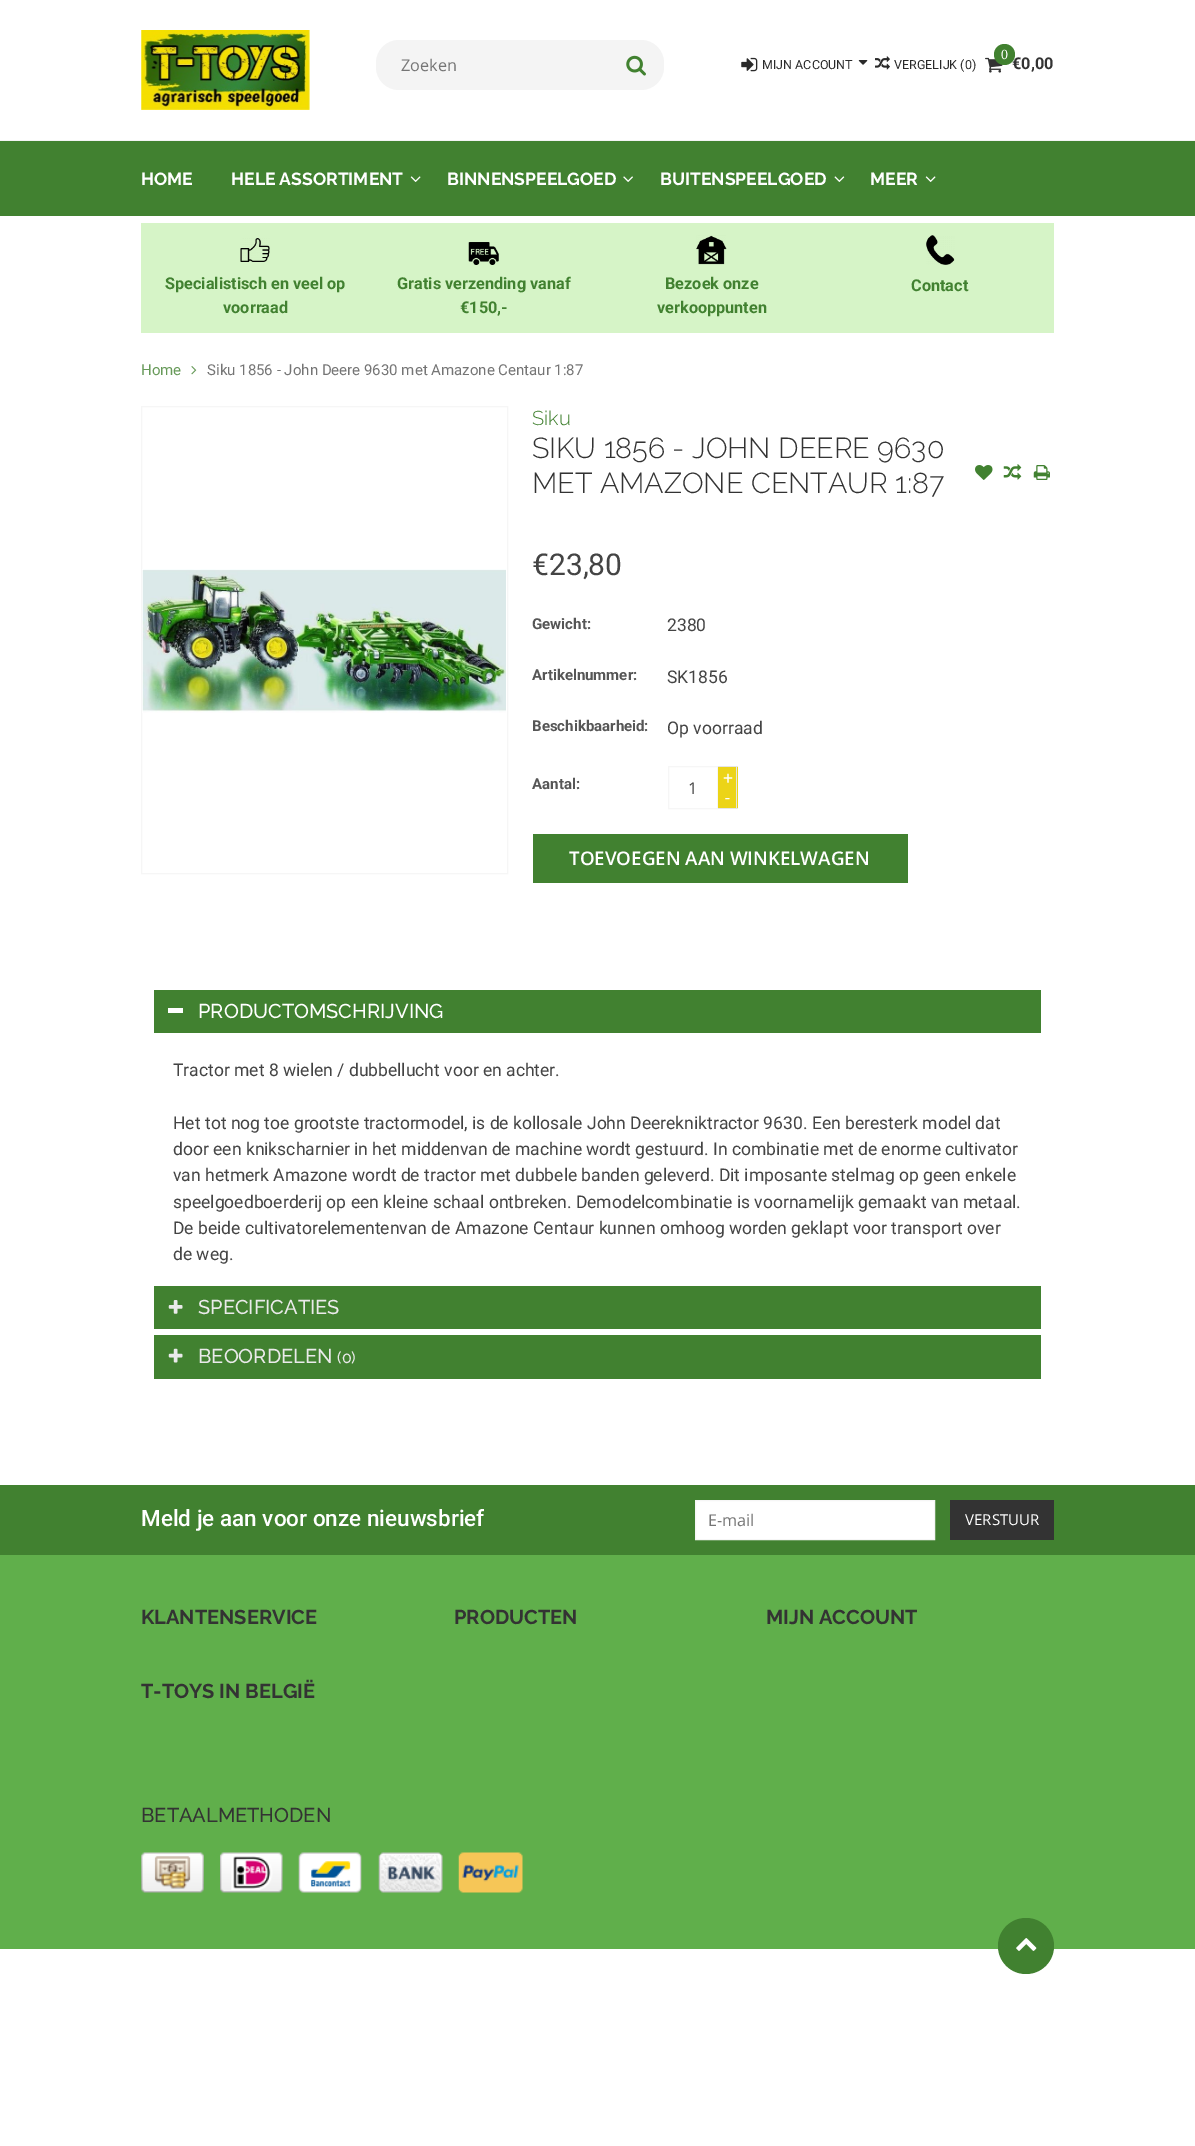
%!PS
<< /PageSize [1195 2146] >> setpagedevice
/roundrect { 5 dict begin { /r /h /w /y /x } { exch def } forall
  x r add y moveto x w add y 2 copy h add r arct x w add y h add x 1 index r arct
  x y h add x y r arct x y 2 copy exch w add exch r arct closepath end } def
/picture { 5 dict begin { /h /w /y /x /name } { exch def } forall
  gsave x y translate w h scale
  w h 8 [w 0 0 h 0 0] name (r) file false 3 colorimage grestore end } def
0 2146 translate 1 -1 scale
4 setmiterlimit
1 setgray
0 0 1195 2146 rectfill
(img1.rgb) 141 30 169 80 picture
0.957 setgray
376 40 288 50 23 roundrect fill
/OpenSans-Regular [16.25 0 0 -16.25 0 0] selectfont
0.459 setgray
401 71 moveto (Zoeken) show
(img2.rgb) 626 55 20 21 picture
(img3.rgb) 741 57 17 15 picture
/Roboto-Regular [12.5 0 0 -12.5 0 0] selectfont
0.165 setgray
762 69 moveto (MIJN ACCOUNT) show
(img4.rgb) 858 60 10 5 picture
(img5.rgb) 875 56 15 14 picture
894 69 moveto (VERGELIJK \(0\)) show
(img6.rgb) 985 57 18 16 picture
/Roboto-Bold [16.25 0 0 -16.25 0 0] selectfont
0.2 setgray
1012 69 moveto (€0,00) show
0.255 0.506 0.188 setrgbcolor
newpath 1004.5 54.5 10.5 0 360 arc closepath fill
/LiberationSerif-Regular [14 0 0 -14 0 0] selectfont
1 setgray
1001 59 moveto (0) show
0.255 0.506 0.188 setrgbcolor
0 141 1195 75 rectfill
0.953 setgray
0 140 1195 1 rectfill
/Raleway-Bold [17.5 0 0 -17.5 0 0] selectfont
1 setgray
141 185 moveto (HOME) show
231 185 moveto (HELE ASSORTIMENT) show
(img7.rgb) 410 176 11 6 picture
447 185 moveto (BINNENSPEELGOED) show
(img8.rgb) 623 176 10 6 picture
660 185 moveto (BUITENSPEELGOED) show
(img9.rgb) 834 176 11 6 picture
870 185 moveto (MEER) show
(img7.rgb) 925 176 11 6 picture
0.839 0.957 0.78 setrgbcolor
141 223 913 110 rectfill
(img10.rgb) 240 238 30 24 picture
/Roboto-Bold [16.25 0 0 -16.25 0 0] selectfont
0.255 0.506 0.188 setrgbcolor
165 289 moveto (Specialistisch en veel op) show
223 313 moveto (voorraad) show
(img11.rgb) 468 242 31 23 picture
397 289 moveto (Gratis verzending vanaf) show
460 313 moveto (€150,-) show
(img12.rgb) 696 235 31 30 picture
665 289 moveto (Bezoek onze) show
657 313 moveto (verkooppunten) show
(img13.rgb) 926 235 29 30 picture
911 291 moveto (Contact) show
/Roboto-Regular [15 0 0 -15 0 0] selectfont
0.404 0.604 0.349 setrgbcolor
141 375 moveto (Home) show
(img14.rgb) 191 366 6 9 picture
0.459 setgray
207 375 moveto (Siku 1856 - John Deere 9630 met Amazone Centaur 1:87) show
0.965 setgray
141.5 406.5 366 467 rectstroke
(img15.rgb) 142 569 364 144 picture
/Raleway-Light [20 0 0 -20 0 0] selectfont
0.255 0.506 0.188 setrgbcolor
532 425 moveto (Siku) show
/Raleway-Light [28.75 0 0 -28.75 0 0] selectfont
0.2 setgray
532 458 moveto (SIKU 1856 - JOHN DEERE 9630) show
532 493 moveto (MET AMAZONE CENTAUR 1:87) show
(img16.rgb) 975 465 18 15 picture
(img17.rgb) 1003 464 19 16 picture
(img18.rgb) 1033 465 17 15 picture
/Roboto-Regular [30 0 0 -30 0 0] selectfont
0.267 setgray
532 575 moveto (€23,80) show
/Roboto-Bold [15 0 0 -15 0 0] selectfont
0.337 setgray
532 629 moveto (Gewicht:) show
/Roboto-Regular [17.5 0 0 -17.5 0 0] selectfont
0.267 setgray
667 631 moveto (2380) show
/Roboto-Bold [15 0 0 -15 0 0] selectfont
0.337 setgray
532 680 moveto (Artikelnummer:) show
/Roboto-Regular [17.5 0 0 -17.5 0 0] selectfont
0.267 setgray
667 683 moveto (SK1856) show
/Roboto-Bold [15 0 0 -15 0 0] selectfont
0.337 setgray
532 731 moveto (Beschikbaarheid:) show
/Roboto-Regular [17.5 0 0 -17.5 0 0] selectfont
0.267 setgray
667 734 moveto (Op voorraad) show
/Roboto-Bold [15 0 0 -15 0 0] selectfont
0.337 setgray
532 789 moveto (Aantal:) show
0.965 setgray
668.5 766.5 49 42 rectstroke
/OpenSans-Regular [16.25 0 0 -16.25 0 0] selectfont
0.267 setgray
688 794 moveto (1) show
0.925 0.831 0.09 setrgbcolor
718 767 20 41 rectfill
0.898 setgray
718 766 20 1 rectfill
736 766 1 43 rectfill
718 808 20 1 rectfill
/Roboto-Regular [17.5 0 0 -17.5 0 0] selectfont
1 setgray
723 784 moveto (+) show
725 804 moveto (-) show
0.255 0.506 0.188 setrgbcolor
533 834 375 49 rectfill
/OpenSans-SemiBold [18.75 0 0 -18.75 0 0] selectfont
1 setgray
569 865 moveto (TOEVOEGEN AAN WINKELWAGEN) show
0.255 0.506 0.188 setrgbcolor
154 990 887 43 rectfill
1 setgray
168 1008 15 5 rectfill
/Raleway-Medium [20 0 0 -20 0 0] selectfont
198 1018 moveto (PRODUCTOMSCHRIJVING) show
/Roboto-Regular [17.5 0 0 -17.5 0 0] selectfont
0.267 setgray
173 1076 moveto (Tractor met 8 wielen / dubbellucht voor en achter.) show
173 1129 moveto (Het tot nog toe grootste tractormodel, is de kollosale John Deerekniktractor 9630. Een beresterk model dat) show
173 1155 moveto (door een knikscharnier in het middenvan de machine wordt gestuurd. In combinatie met de enorme cultivator) show
173 1181 moveto (van hetmerk Amazone wordt de tractor met dubbele banden geleverd. Dit imposante stelmag op geen enkele) show
173 1208 moveto (speelgoedboerderij op een kleine schaal ontbreken. Demodelcombinatie is voornamelijk gemaakt van metaal.) show
173 1234 moveto (De beide cultivatorelementenvan de Amazone Centaur kunnen omhoog worden geklapt voor transport over) show
173 1260 moveto (de weg.) show
0.255 0.506 0.188 setrgbcolor
154 1286 887 43 rectfill
(img19.rgb) 168 1300 15 14 picture
/Raleway-Medium [20 0 0 -20 0 0] selectfont
0.918 setgray
198 1314 moveto (SPECIFICATIES) show
0.255 0.506 0.188 setrgbcolor
154 1335 887 44 rectfill
(img20.rgb) 168 1348 15 15 picture
0.918 setgray
198 1363 moveto (BEOORDELEN) show
/Raleway-Medium [16 0 0 -16 0 0] selectfont
337 1363 moveto (\(0\)) show
0.376 0.686 0.294 setrgbcolor
0 1555 1195 394 rectfill
0.255 0.506 0.188 setrgbcolor
0 1485 1195 70 rectfill
/Roboto-Medium [22.5 0 0 -22.5 0 0] selectfont
1 setgray
141 1526 moveto (Meld je aan voor onze nieuwsbrief) show
newpath 695.5 1500.5 moveto 934.5 1500.5 lineto 934.5 1539.5 lineto 695.5 1539.5 lineto closepath gsave fill grestore
0.965 setgray
stroke
/OpenSans-Regular [16.25 0 0 -16.25 0 0] selectfont
0.459 setgray
708 1526 moveto (E-mail) show
0.2 setgray
950 1500 104 40 rectfill
/OpenSans-Regular [15 0 0 -15 0 0] selectfont
1 setgray
965 1525 moveto (VERSTUUR) show
/Raleway-Bold [20 0 0 -20 0 0] selectfont
0.2 setgray
141 1624 moveto (KLANTENSERVICE) show
454 1624 moveto (PRODUCTEN) show
766 1624 moveto (MIJN ACCOUNT) show
141 1698 moveto (T-TOYS IN BELGIË) show
/Raleway-Medium [20 0 0 -20 0 0] selectfont
141 1822 moveto (BETAALMETHODEN) show
(img21.rgb) 141 1852 63 41 picture
(img22.rgb) 220 1852 63 41 picture
(img23.rgb) 298 1852 64 41 picture
(img24.rgb) 378 1852 65 41 picture
(img25.rgb) 458 1852 65 41 picture
0.255 0.506 0.188 setrgbcolor
newpath 1026 1946 28 0 360 arc closepath fill
(img26.rgb) 1016 1938 21 13 picture
showpage
